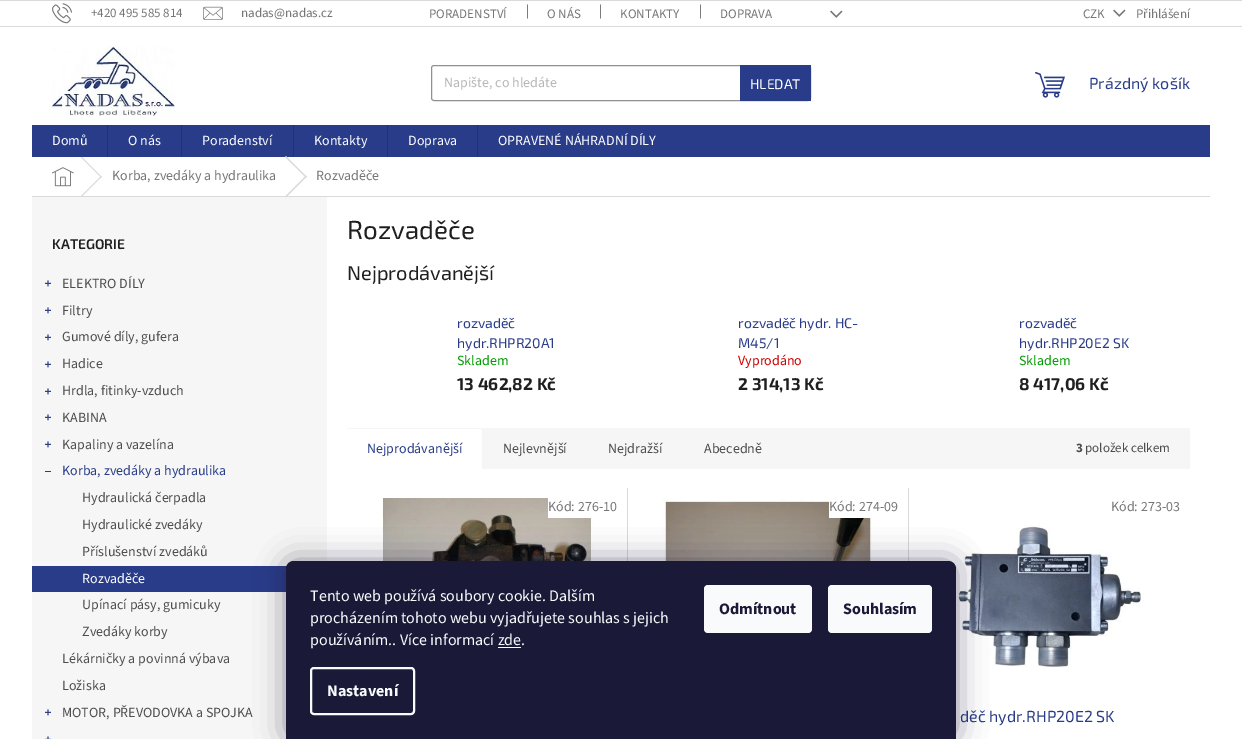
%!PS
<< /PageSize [1257 739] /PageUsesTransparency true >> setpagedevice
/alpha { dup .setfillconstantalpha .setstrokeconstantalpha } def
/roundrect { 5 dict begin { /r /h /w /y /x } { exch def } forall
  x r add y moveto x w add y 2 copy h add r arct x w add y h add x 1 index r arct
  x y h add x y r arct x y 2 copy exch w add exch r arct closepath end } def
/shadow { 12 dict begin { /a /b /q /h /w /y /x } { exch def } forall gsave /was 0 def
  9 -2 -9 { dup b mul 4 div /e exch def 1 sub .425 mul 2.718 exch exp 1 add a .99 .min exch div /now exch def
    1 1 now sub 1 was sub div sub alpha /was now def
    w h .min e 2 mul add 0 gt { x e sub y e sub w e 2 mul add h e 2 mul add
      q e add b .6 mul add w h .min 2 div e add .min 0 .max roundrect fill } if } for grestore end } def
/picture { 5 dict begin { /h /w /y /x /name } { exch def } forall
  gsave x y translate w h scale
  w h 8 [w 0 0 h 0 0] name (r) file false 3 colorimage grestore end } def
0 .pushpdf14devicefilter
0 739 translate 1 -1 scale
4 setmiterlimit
1 setgray
0 0 1257 739 rectfill
0.855 setgray
0 0 1242 1 rectfill
0 26 1242 1 rectfill
(img1.rgb) 52 3 20 21 picture
/SourceSans3-Regular [13 0 0 -13 0 0] selectfont
0.463 setgray
91 17 moveto (+420 495 585 814) show
(img2.rgb) 203 6 20 14 picture
241 17 moveto (nadas@nadas.cz) show
429 18 moveto (PORADENSTVÍ) show
/SourceSans3-Regular [14 0 0 -14 0 0] selectfont
0.302 setgray
526 15 moveto (|) show
/SourceSans3-Regular [13 0 0 -13 0 0] selectfont
0.463 setgray
547 18 moveto (O NÁS) show
/SourceSans3-Regular [14 0 0 -14 0 0] selectfont
0.302 setgray
599 15 moveto (|) show
/SourceSans3-Regular [13 0 0 -13 0 0] selectfont
0.463 setgray
620 18 moveto (KONTAKTY) show
/SourceSans3-Regular [14 0 0 -14 0 0] selectfont
0.302 setgray
699 15 moveto (|) show
/SourceSans3-Regular [13 0 0 -13 0 0] selectfont
0.463 setgray
720 18 moveto (DOPRAVA) show
(img3.rgb) 830 10 13 8 picture
1083 18 moveto (CZK) show
(img3.rgb) 1113 9 13 8 picture
1136 18 moveto (Přihlášení) show
(img4.rgb) 52 46 123 70 picture
0.569 setgray
431.5 65.5 379 35 2.5 roundrect stroke
/SourceSans3-Regular [14 0 0 -14 0 0] selectfont
0.714 setgray
444 87 moveto (Napište, co hledáte) show
0.161 0.235 0.537 setrgbcolor
740 65 71 36 rectfill
/Exo2-Regular [14 0 0 -14 0 0] selectfont
1 setgray
750 89 moveto (HLEDAT) show
(img5.rgb) 1035 72 30 26 picture
/Exo2-Regular [16 0 0 -16 0 0] selectfont
0.161 0.235 0.537 setrgbcolor
1089 89 moveto (Prázdný košík) show
32 125 1178 32 rectfill
/SourceSans3-Regular [14 0 0 -14 0 0] selectfont
1 setgray
52 145 moveto (Domů) show
0.129 0.188 0.431 setrgbcolor
107 125 1 32 rectfill
1 setgray
128 145 moveto (O nás) show
0.129 0.188 0.431 setrgbcolor
181 125 1 32 rectfill
1 setgray
202 145 moveto (Poradenství) show
0.129 0.188 0.431 setrgbcolor
293 125 1 32 rectfill
1 setgray
314 145 moveto (Kontakty) show
0.129 0.188 0.431 setrgbcolor
387 125 1 32 rectfill
1 setgray
408 145 moveto (Doprava) show
0.129 0.188 0.431 setrgbcolor
477 125 1 32 rectfill
1 setgray
498 145 moveto (OPRAVENÉ NÁHRADNÍ DÍLY) show
0.855 setgray
32 196 1178 1 rectfill
(img6.rgb) 52 167 22 20 picture
newpath 81 157.5 moveto 82 157 lineto 102 177 lineto 101 177.5 lineto closepath fill
newpath 101 176 moveto 102 176.5 lineto 82 196.5 lineto 81 196 lineto closepath fill
0.463 setgray
112 180 moveto (Korba, zvedáky a hydraulika) show
0.855 setgray
newpath 285 157 moveto 286 156 lineto 307 177 lineto 306 177.5 lineto closepath fill
0.965 setgray
32 197 295 542 rectfill
0.855 setgray
newpath 306 175.5 moveto 307 176.5 lineto 286 197.5 lineto 285 196.5 lineto closepath fill
0.463 setgray
316 180 moveto (Rozvaděče) show
/Exo2-SemiBold [14 0 0 -14 0 0] selectfont
0.122 setgray
52 249 moveto (KATEGORIE) show
(img7.rgb) 45 280 6 7 picture
/SourceSans3-Regular [14 0 0 -14 0 0] selectfont
0.302 setgray
62 288 moveto (ELEKTRO DÍLY) show
(img7.rgb) 45 307 6 7 picture
62 315 moveto (Filtry) show
(img7.rgb) 45 334 6 7 picture
62 341 moveto (Gumové díly, gufera) show
(img7.rgb) 45 361 6 7 picture
62 368 moveto (Hadice) show
(img7.rgb) 45 388 6 7 picture
62 395 moveto (Hrdla, fitinky-vzduch) show
(img7.rgb) 45 414 6 7 picture
62 422 moveto (KABINA) show
(img7.rgb) 45 441 6 7 picture
62 449 moveto (Kapaliny a vazelína) show
0.161 0.235 0.537 setrgbcolor
45 471 6 1 rectfill
62 475 moveto (Korba, zvedáky a hydraulika) show
0.302 setgray
82 502 moveto (Hydraulická čerpadla) show
82 529 moveto (Hydraulické zvedáky) show
82 556 moveto (Příslušenství zvedáků) show
0.161 0.235 0.537 setrgbcolor
32 566 255 26 rectfill
1 setgray
82 583 moveto (Rozvaděče) show
0.302 setgray
82 609 moveto (Upínací pásy, gumicuky) show
82 636 moveto (Zvedáky korby) show
62 663 moveto (Lékárničky a povinná výbava) show
62 690 moveto (Ložiska) show
(img7.rgb) 45 709 6 7 picture
62 717 moveto (MOTOR, PŘEVODOVKA a SPOJKA) show
(img8.rgb) 45 736 6 3 picture
/Exo2-Regular [26 0 0 -26 0 0] selectfont
0.122 setgray
347 239 moveto (Rozvaděče) show
/Exo2-Regular [20 0 0 -20 0 0] selectfont
347 280 moveto (Nejprodávanější) show
/Exo2-Regular [14 0 0 -14 0 0] selectfont
0.161 0.235 0.537 setrgbcolor
457 328 moveto (rozvaděč) show
457 348 moveto (hydr.RHPR20A1) show
/SourceSans3-Regular [14 0 0 -14 0 0] selectfont
0 0.6 0.004 setrgbcolor
457 365 moveto (Skladem) show
/Exo2-Bold [17 0 0 -17 0 0] selectfont
0.122 setgray
457 390 moveto (13 462,82 Kč) show
/Exo2-Regular [14 0 0 -14 0 0] selectfont
0.161 0.235 0.537 setrgbcolor
738 328 moveto (rozvaděč hydr. HC-) show
738 348 moveto (M45/1) show
/SourceSans3-Regular [14 0 0 -14 0 0] selectfont
0.796 0 0 setrgbcolor
738 365 moveto (Vyprodáno) show
/Exo2-Bold [17 0 0 -17 0 0] selectfont
0.122 setgray
738 390 moveto (2 314,13 Kč) show
/Exo2-Regular [14 0 0 -14 0 0] selectfont
0.161 0.235 0.537 setrgbcolor
1019 328 moveto (rozvaděč) show
1019 348 moveto (hydr.RHP20E2 SK) show
/SourceSans3-Regular [14 0 0 -14 0 0] selectfont
0 0.6 0.004 setrgbcolor
1019 365 moveto (Skladem) show
/Exo2-Bold [17 0 0 -17 0 0] selectfont
0.122 setgray
1019 390 moveto (8 417,06 Kč) show
0.965 setgray
347 428 843 41 rectfill
1 setgray
347 429 135 40 rectfill
/SourceSans3-Regular [14 0 0 -14 0 0] selectfont
0.161 0.235 0.537 setrgbcolor
367 453 moveto (Nejprodávanější) show
0.302 setgray
503 453 moveto (Nejlevnější) show
608 453 moveto (Nejdražší) show
704 453 moveto (Abecedně) show
/SourceSans3-Bold [13 0 0 -13 0 0] selectfont
1076 452 moveto (3) show
/SourceSans3-Regular [13 0 0 -13 0 0] selectfont
1085 452 moveto (položek celkem) show
0.855 setgray
627 488 1 73 rectfill
(img9.rgb) 382 498 211 63 picture
1 setgray
548 498 45 20 rectfill
/SourceSans3-Regular [14 0 0 -14 0 0] selectfont
0.463 setgray
548 511 moveto (Kód: 276-10) show
0.855 setgray
908 488 1 73 rectfill
(img10.rgb) 663 498 211 63 picture
1 setgray
829 498 45 20 rectfill
0.463 setgray
829 511 moveto (Kód: 274-09) show
1111 511 moveto (Kód: 273-03) show
(img11.rgb) 958 524 184 143 picture
/Exo2-Regular [16 0 0 -16 0 0] selectfont
0.161 0.235 0.537 setrgbcolor
960 722 moveto (děč hydr.RHP20E2 SK) show
0.106 0.098 0.224 setrgbcolor
286 561 670 178 8 15 0.5 shadow
0.102 0.098 0.216 setrgbcolor
newpath 294 561 moveto 948 561 lineto 952.5 561 956 564.5 956 569 curveto 956 739 lineto 286 739 lineto 286 569 lineto 286 564.5 289.5 561 294 561 curveto closepath fill
/SourceSans3-Regular [16 0 0 -16 0 0] selectfont
0.973 0.98 0.984 setrgbcolor
310 601 moveto (Tento web používá soubory cookie. Dalším) show
310 623 moveto (procházením tohoto webu vyjadřujete souhlas s jejich) show
310 645 moveto (používáním.. Více informací zde.) show
498 647 23 1 rectfill
2 setlinewidth
311 668 103 46 3 roundrect stroke
/SourceSans3-Bold [16 0 0 -16 0 0] selectfont
327 696 moveto (Nastavení) show
704 585 108 48 4 roundrect fill
0.102 0.098 0.216 setrgbcolor
719 614 moveto (Odmítnout) show
0.973 0.98 0.984 setrgbcolor
828 585 104 48 4 roundrect fill
0.102 0.098 0.216 setrgbcolor
843 614 moveto (Souhlasím) show
.poppdf14devicefilter showpage
